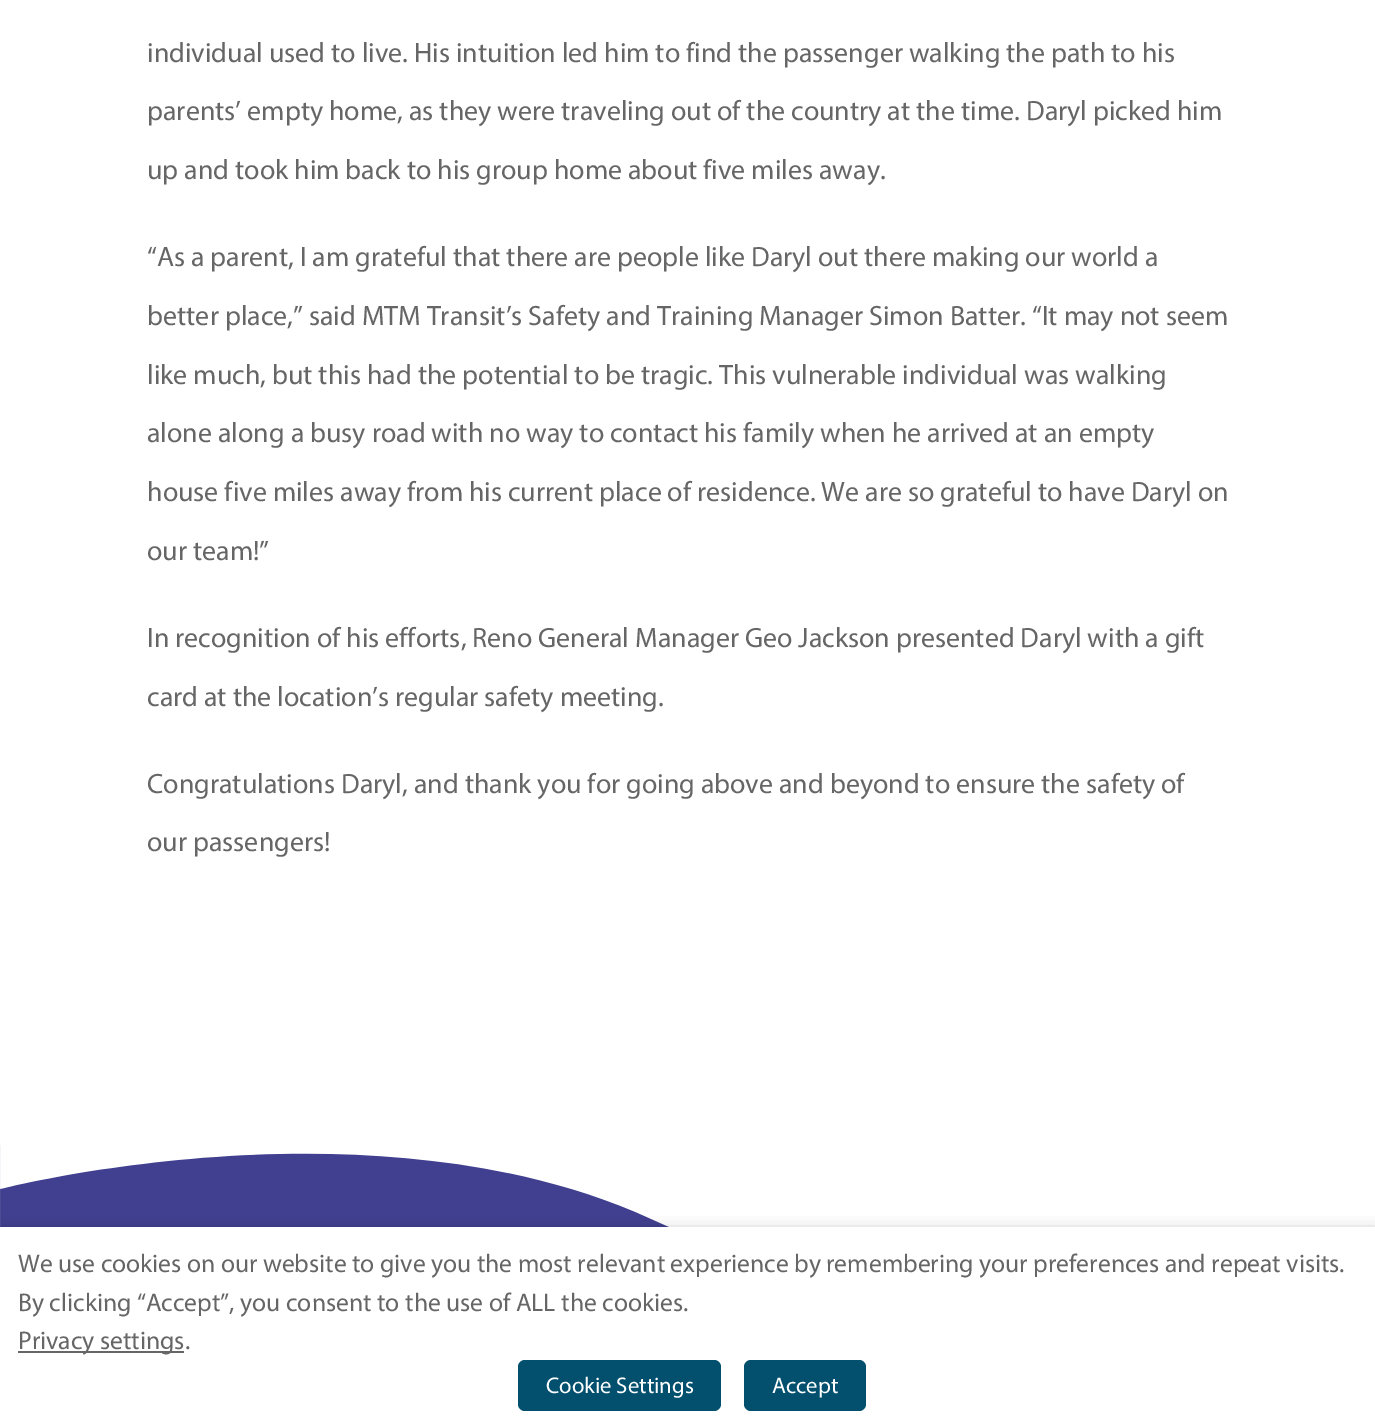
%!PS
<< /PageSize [1375 1428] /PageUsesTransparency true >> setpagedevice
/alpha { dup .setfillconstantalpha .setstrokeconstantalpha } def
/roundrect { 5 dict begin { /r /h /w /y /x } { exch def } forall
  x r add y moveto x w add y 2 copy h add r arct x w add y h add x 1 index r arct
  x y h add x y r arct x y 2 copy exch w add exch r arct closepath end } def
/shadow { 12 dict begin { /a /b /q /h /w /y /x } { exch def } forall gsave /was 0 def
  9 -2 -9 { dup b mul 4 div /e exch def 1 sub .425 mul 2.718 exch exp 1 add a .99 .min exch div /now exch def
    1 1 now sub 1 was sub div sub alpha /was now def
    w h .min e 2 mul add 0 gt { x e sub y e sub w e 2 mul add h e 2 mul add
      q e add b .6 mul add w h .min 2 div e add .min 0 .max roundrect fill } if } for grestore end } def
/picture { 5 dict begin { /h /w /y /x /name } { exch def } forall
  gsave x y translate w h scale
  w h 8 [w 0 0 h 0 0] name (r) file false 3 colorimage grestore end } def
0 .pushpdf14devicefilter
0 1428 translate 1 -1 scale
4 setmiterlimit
1 setgray
0 0 1375 1428 rectfill
/Myriad-Regular [28 0 0 -28 0 0] selectfont
0.4 setgray
147 62 moveto (individual used to live. His intuition led him to find the passenger walking the path to his) show
147 120 moveto (parents’ empty home, as they were traveling out of the country at the time. Daryl picked him) show
147 179 moveto (up and took him back to his group home about five miles away.) show
147 266 moveto (“As a parent, I am grateful that there are people like Daryl out there making our world a) show
147 325 moveto (better place,” said MTM Transit’s Safety and Training Manager Simon Batter. “It may not seem) show
147 384 moveto (like much, but this had the potential to be tragic. This vulnerable individual was walking) show
147 442 moveto (alone along a busy road with no way to contact his family when he arrived at an empty) show
147 501 moveto (house five miles away from his current place of residence. We are so grateful to have Daryl on) show
147 560 moveto (our team!”) show
147 647 moveto (In recognition of his efforts, Reno General Manager Geo Jackson presented Daryl with a gift) show
147 706 moveto (card at the location’s regular safety meeting.) show
147 793 moveto (Congratulations Daryl, and thank you for going above and beyond to ensure the safety of) show
147 851 moveto (our passengers!) show
(img1.rgb) 0 1145 1375 82 picture
0 setgray
0 1236 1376 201 0 9 0.5 shadow
1 setgray
0 1227 1375 201 rectfill
/Myriad-Regular [25.67 0 0 -25.67 0 0] selectfont
0.4 setgray
18 1272 moveto (We use cookies on our website to give you the most relevant experience by remembering your preferences and repeat visits.) show
18 1311 moveto (By clicking “Accept”, you consent to the use of ALL the cookies.) show
18 1351 166 2 rectfill
18 1349 moveto (Privacy settings.) show
0.008 0.31 0.431 setrgbcolor
518 1360 203 51 7 roundrect fill
/Myriad-Regular [22.75 0 0 -22.75 0 0] selectfont
1 setgray
546 1393 moveto (Cookie Settings) show
0.008 0.31 0.431 setrgbcolor
744 1360 122 51 7 roundrect fill
1 setgray
772 1393 moveto (Accept) show
.poppdf14devicefilter showpage
